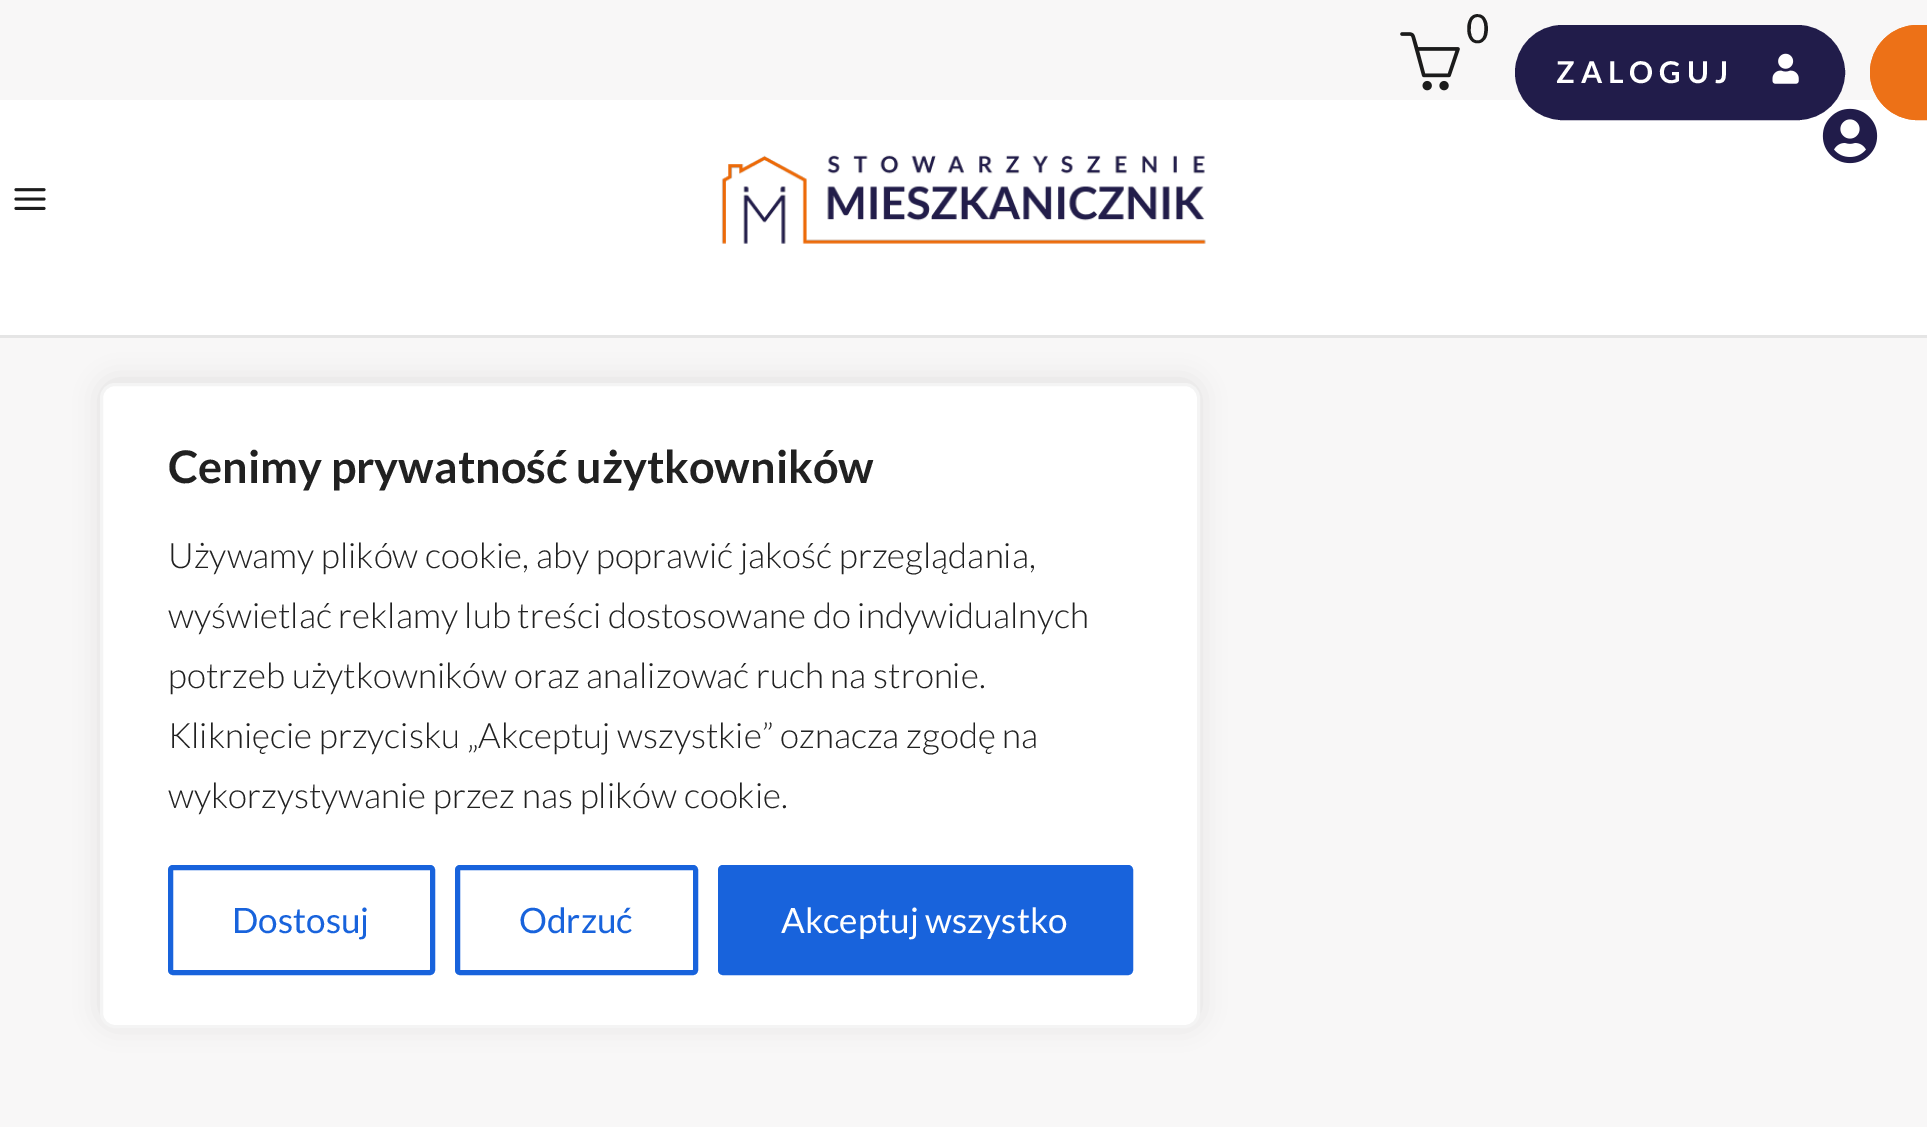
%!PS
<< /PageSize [1927 1127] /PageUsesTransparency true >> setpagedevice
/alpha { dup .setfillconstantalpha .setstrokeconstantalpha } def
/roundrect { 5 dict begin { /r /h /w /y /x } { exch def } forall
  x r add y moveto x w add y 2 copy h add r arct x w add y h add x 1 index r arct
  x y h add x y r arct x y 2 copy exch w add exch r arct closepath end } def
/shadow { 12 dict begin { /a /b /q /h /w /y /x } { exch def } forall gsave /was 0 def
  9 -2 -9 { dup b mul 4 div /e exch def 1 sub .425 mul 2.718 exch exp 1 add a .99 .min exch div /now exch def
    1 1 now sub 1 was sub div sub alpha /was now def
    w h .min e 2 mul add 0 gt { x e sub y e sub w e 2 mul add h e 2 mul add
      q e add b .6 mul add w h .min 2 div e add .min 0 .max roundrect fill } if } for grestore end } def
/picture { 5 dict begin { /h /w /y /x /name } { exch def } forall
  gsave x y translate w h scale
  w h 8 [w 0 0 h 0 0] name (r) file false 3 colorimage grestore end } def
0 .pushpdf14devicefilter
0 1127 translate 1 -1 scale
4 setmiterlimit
0.973 0.969 0.969 setrgbcolor
0 0 1927 1127 rectfill
/Lato-Regular [40 0 0 -40 0 0] selectfont
0.106 setgray
1466 43 moveto (0) show
(img1.rgb) 1400 32 60 59 picture
1 setgray
0 100 1927 235 rectfill
(img3.rgb) 1822 108 56 56 picture
0.129 0.11 0.29 setrgbcolor
1516.5 26.5 327 92 46 roundrect gsave fill grestore
3 setlinewidth
stroke
/Lato-Bold [30 0 0 -30 0 0] selectfont
1 setgray
1556 83 moveto 6 0 (ZALOGUJ) ashow
(img2.rgb) 1772 53 27 31 picture
0.929 0.443 0.09 setrgbcolor
newpath 1917.5 25 moveto 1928 25 lineto 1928 120 lineto 1917.5 120 lineto 1891.5 120 1870 98.5 1870 72.5 curveto 1870 46.5 1891.5 25 1917.5 25 curveto closepath fill
1871.5 26.5 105 92 46 roundrect stroke
0.898 setgray
0 335 1927 3 rectfill
(img4.rgb) 14 188 32 22 picture
(img5.rgb) 721 155 485 89 picture
0.675 0.671 0.671 setrgbcolor
100 380 1100 645 15 12.5 0.3 shadow
1 setgray
101.5 384.5 1097 642 13.5 roundrect gsave fill grestore
0.957 setgray
stroke
/Lato-Bold [45 0 0 -45 0 0] selectfont
0.129 setgray
168 483 moveto (Cenimy prywatność użytkowników) show
/Lato-Light [35 0 0 -35 0 0] selectfont
168 568 moveto (Używamy plików cookie, aby poprawić jakość przeglądania,) show
168 628 moveto (wyświetlać reklamy lub treści dostosowane do indywidualnych) show
168 688 moveto (potrzeb użytkowników oraz analizować ruch na stronie.) show
168 748 moveto (Kliknięcie przycisku „Akceptuj wszystkie” oznacza zgodę na) show
168 808 moveto (wykorzystywanie przez nas plików cookie.) show
0.094 0.388 0.863 setrgbcolor
5 setlinewidth
170.5 867.5 262 105 2.5 roundrect stroke
/Lato-Regular [35 0 0 -35 0 0] selectfont
232 933 moveto (Dostosuj) show
457.5 867.5 238 105 2.5 roundrect stroke
519 933 moveto (Odrzuć) show
720.5 867.5 410 105 2.5 roundrect gsave fill grestore
stroke
1 setgray
781 933 moveto (Akceptuj wszystko) show
.poppdf14devicefilter showpage
